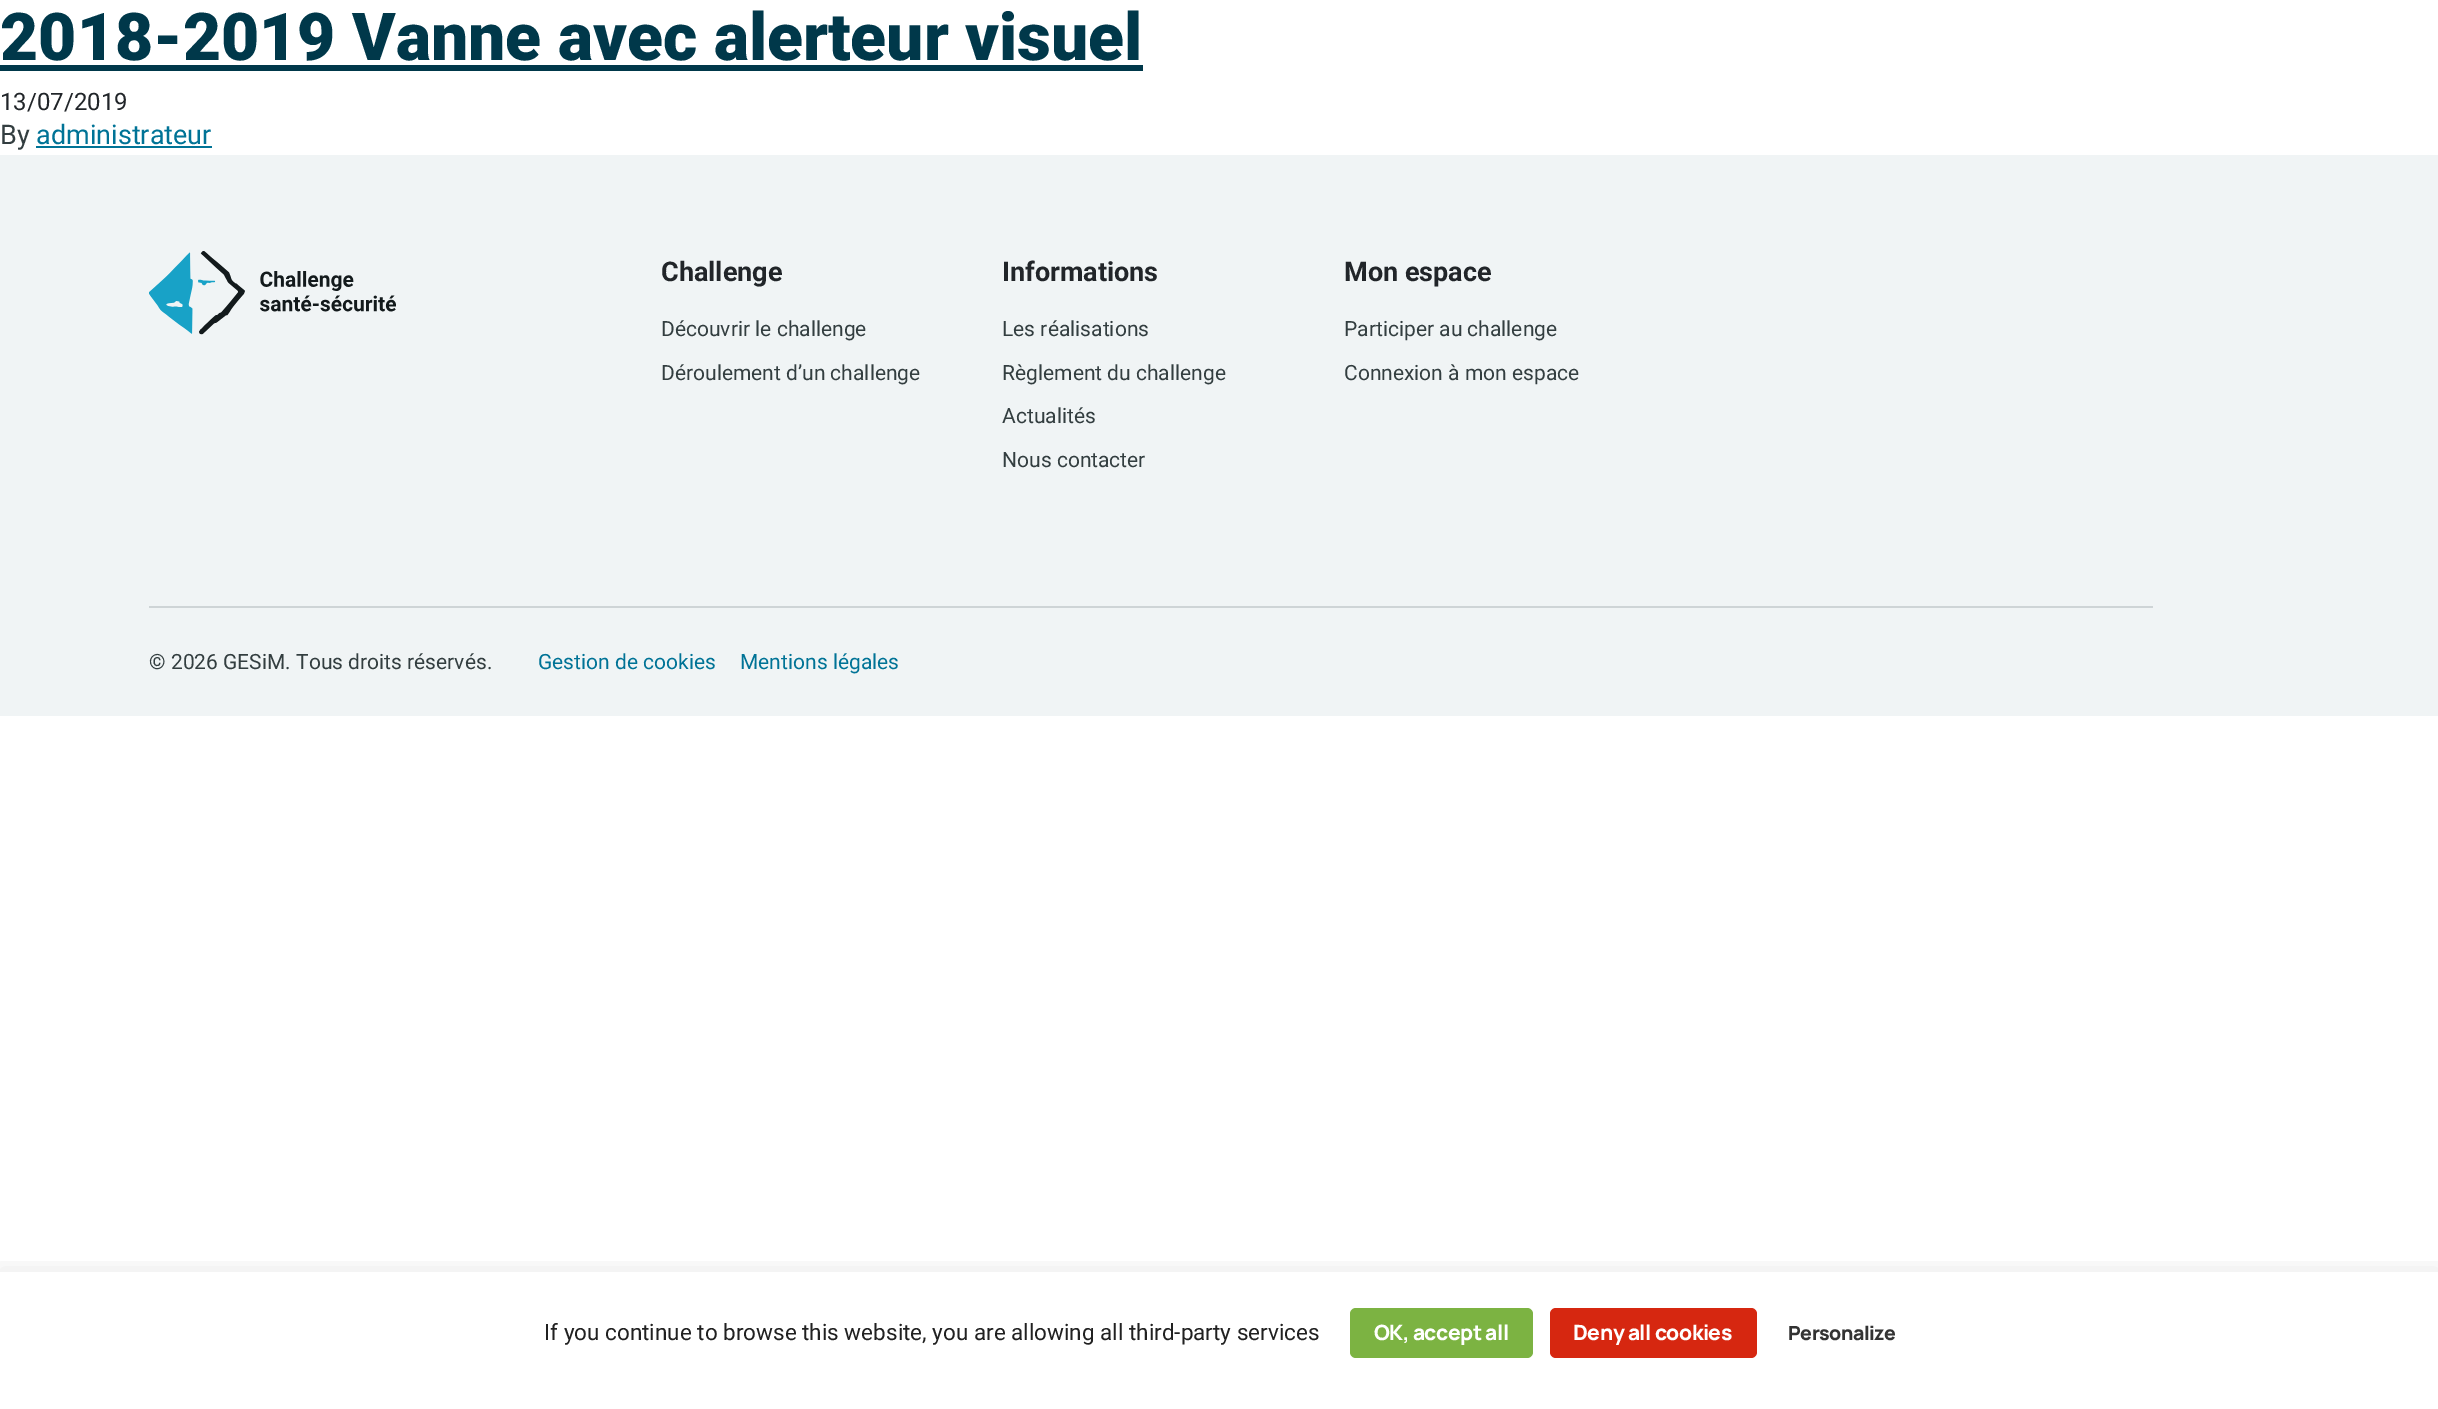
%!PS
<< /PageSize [2438 1409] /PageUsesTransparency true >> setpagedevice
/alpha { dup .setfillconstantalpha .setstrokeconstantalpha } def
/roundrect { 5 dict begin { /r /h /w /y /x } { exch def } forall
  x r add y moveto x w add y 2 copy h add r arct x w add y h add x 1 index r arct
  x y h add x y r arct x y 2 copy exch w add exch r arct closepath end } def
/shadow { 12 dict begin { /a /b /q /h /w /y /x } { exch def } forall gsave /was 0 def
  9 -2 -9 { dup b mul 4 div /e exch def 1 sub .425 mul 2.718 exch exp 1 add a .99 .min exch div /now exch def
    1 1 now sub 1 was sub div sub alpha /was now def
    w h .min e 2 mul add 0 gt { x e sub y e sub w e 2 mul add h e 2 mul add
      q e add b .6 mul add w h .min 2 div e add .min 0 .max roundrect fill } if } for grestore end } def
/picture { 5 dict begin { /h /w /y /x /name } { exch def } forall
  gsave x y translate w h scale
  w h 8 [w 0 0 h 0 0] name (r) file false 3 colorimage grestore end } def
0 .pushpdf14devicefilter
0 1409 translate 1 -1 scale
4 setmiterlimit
1 setgray
0 0 2438 1409 rectfill
/Roboto-Black [66 0 0 -66 0 0] selectfont
0 0.22 0.29 setrgbcolor
0 60 moveto (2018-2019 Vanne avec alerteur visuel) show
0 65 1143 6 rectfill
/Roboto-Regular [24 0 0 -24 0 0] selectfont
0.129 0.145 0.161 setrgbcolor
0 110 moveto (13/07/2019) show
/Roboto-Regular [27 0 0 -27 0 0] selectfont
0.2 0.243 0.251 setrgbcolor
0 144 moveto (By) show
0 0.451 0.588 setrgbcolor
36 144 moveto (administrateur) show
36 146 176 2 rectfill
0.941 0.957 0.961 setrgbcolor
0 155 2438 561 rectfill
(img1.rgb) 149 251 247 84 picture
/Roboto-Bold [27 0 0 -27 0 0] selectfont
0.129 0.145 0.161 setrgbcolor
661 281 moveto (Challenge) show
/Roboto-Regular [21 0 0 -21 0 0] selectfont
0.2 0.243 0.251 setrgbcolor
661 336 moveto (Découvrir le challenge) show
661 380 moveto (Déroulement d’un challenge) show
/Roboto-Bold [27 0 0 -27 0 0] selectfont
0.129 0.145 0.161 setrgbcolor
1002 281 moveto (Informations) show
/Roboto-Regular [21 0 0 -21 0 0] selectfont
0.2 0.243 0.251 setrgbcolor
1002 336 moveto (Les réalisations) show
1002 380 moveto (Règlement du challenge) show
1002 423 moveto (Actualités) show
1002 467 moveto (Nous contacter) show
/Roboto-Bold [27 0 0 -27 0 0] selectfont
0.129 0.145 0.161 setrgbcolor
1344 281 moveto (Mon espace) show
/Roboto-Regular [21 0 0 -21 0 0] selectfont
0.2 0.243 0.251 setrgbcolor
1344 336 moveto (Participer au challenge) show
1344 380 moveto (Connexion à mon espace) show
0.808 0.831 0.839 setrgbcolor
149 606 2004 2 rectfill
0.2 0.243 0.251 setrgbcolor
149 669 moveto (© 2026 GESiM. Tous droits réservés.) show
0 0.451 0.588 setrgbcolor
538 669 moveto (Gestion de cookies) show
740 669 moveto (Mentions légales) show
gsave
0 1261 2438 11 rectclip
0 setgray
0 1269 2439 138 0 12 0.08 shadow
grestore
/Roboto-Regular [22.5 0 0 -22.5 0 0] selectfont
0.129 setgray
544 1340 moveto (If you continue to browse this website, you are allowing all third-party services) show
0.486 0.702 0.259 setrgbcolor
1350 1308 183 50 6 roundrect fill
/Manrope-ExtraBold [21 0 0 -21 0 0] selectfont
1 setgray
1374 1340 moveto -0.5 0 (OK, accept all) ashow
0.839 0.153 0.063 setrgbcolor
1550 1308 207 50 6 roundrect fill
1 setgray
1573 1340 moveto -0.5 0 (Deny all cookies) ashow
/Manrope-ExtraBold [19.5 0 0 -19.5 0 0] selectfont
0.2 setgray
1788 1340 moveto -0.5 0 (Personalize) ashow
.poppdf14devicefilter showpage
